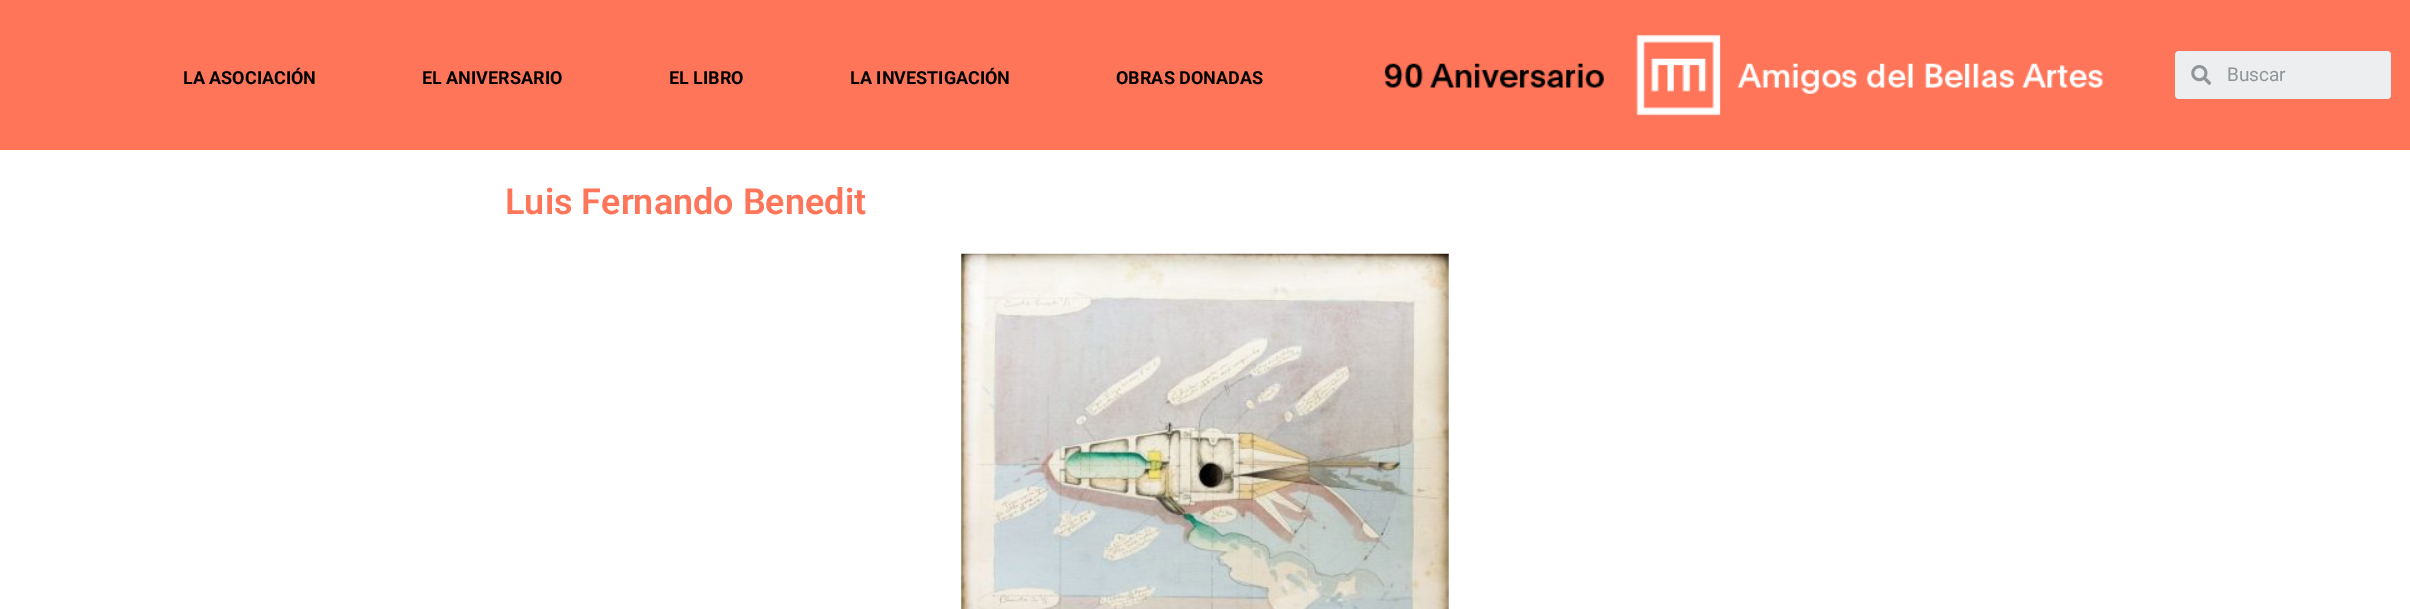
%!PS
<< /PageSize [2410 609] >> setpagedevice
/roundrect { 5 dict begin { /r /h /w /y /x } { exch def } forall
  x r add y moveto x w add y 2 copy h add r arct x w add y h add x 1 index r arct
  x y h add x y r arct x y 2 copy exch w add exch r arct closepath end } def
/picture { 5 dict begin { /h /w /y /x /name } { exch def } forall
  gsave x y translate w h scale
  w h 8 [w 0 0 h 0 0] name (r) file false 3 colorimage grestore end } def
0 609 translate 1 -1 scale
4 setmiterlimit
1 setgray
0 0 2410 609 rectfill
1 0.459 0.349 setrgbcolor
0 0 2410 150 rectfill
/Roboto-Bold [18 0 0 -18 0 0] selectfont
0 setgray
183 84 moveto (LA ASOCIACIÓN) show
422 84 moveto (EL ANIVERSARIO) show
669 84 moveto (EL LIBRO) show
850 84 moveto (LA INVESTIGACIÓN) show
1116 84 moveto (OBRAS DONADAS) show
(img1.rgb) 1384 34 719 82 picture
0.925 0.933 0.937 setrgbcolor
2175 51 216 48 4 roundrect fill
(img2.rgb) 2191 65 21 20 picture
/Roboto-Regular [19 0 0 -19 0 0] selectfont
0.569 0.584 0.592 setrgbcolor
2227 81 moveto (Buscar) show
/Roboto-SemiBold [36 0 0 -36 0 0] selectfont
1 0.459 0.349 setrgbcolor
505 214 moveto (Luis Fernando Benedit) show
(img3.rgb) 961 253 488 356 picture
showpage
